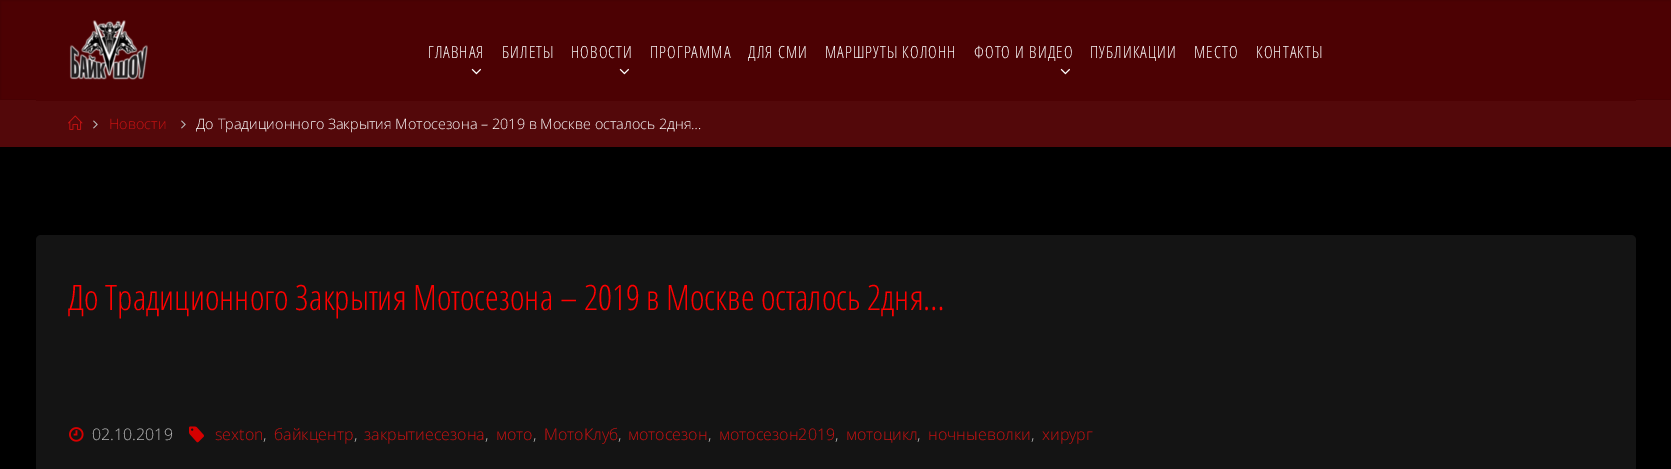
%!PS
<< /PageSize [1671 469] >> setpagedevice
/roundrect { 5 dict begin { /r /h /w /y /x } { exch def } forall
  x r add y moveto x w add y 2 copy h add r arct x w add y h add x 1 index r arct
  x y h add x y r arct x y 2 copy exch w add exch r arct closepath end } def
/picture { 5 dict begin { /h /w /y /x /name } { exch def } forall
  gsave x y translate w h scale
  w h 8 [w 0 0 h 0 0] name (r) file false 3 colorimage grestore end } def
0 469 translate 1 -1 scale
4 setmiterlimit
0 setgray
0 0 1671 469 rectfill
0.298 0.004 0.012 setrgbcolor
newpath 0.5 0.5 moveto 1670.5 0.5 lineto 1670.5 99.5 lineto 0.5 99.5 lineto closepath gsave fill grestore
0.278 0.004 0.012 setrgbcolor
stroke
0.325 0.031 0.039 setrgbcolor
0 100 1671 47 rectfill
0.298 0.004 0.012 setrgbcolor
36 99 1600 2 rectfill
(img1.rgb) 69 20 79 60 picture
/OpenSansCondensed-Light [16.75 0 0 -16.75 0 0] selectfont
1 setgray
428 58 moveto 1 0 (ГЛАВНАЯ) ashow
(img2.rgb) 471 68 10 7 picture
502 58 moveto 1 0 (БИЛЕТЫ) ashow
571 58 moveto 1 0 (НОВОСТИ) ashow
(img2.rgb) 619 68 10 7 picture
650 58 moveto 1 0 (ПРОГРАММА) ashow
748 58 moveto 1 0 (ДЛЯ СМИ) ashow
825 58 moveto 1 0 (МАРШРУТЫ КОЛОНН) ashow
974 58 moveto 1 0 (ФОТО И ВИДЕО) ashow
(img2.rgb) 1060 68 10 7 picture
1090 58 moveto 1 0 (ПУБЛИКАЦИИ) ashow
1194 58 moveto 1 0 (МЕСТО) ashow
1256 58 moveto 1 0 (КОНТАКТЫ) ashow
(img3.rgb) 68 115 15 15 picture
(img4.rgb) 93 120 5 9 picture
/OpenSans-Light [14.4 0 0 -14.4 0 0] selectfont
0.788 0.071 0.071 setrgbcolor
109 129 moveto (Новости) show
(img4.rgb) 181 120 5 9 picture
1 setgray
196 129 moveto (До Традиционного Закрытия Мотосезона – 2019 в Москве осталось 2дня…) show
0.078 setgray
36 235 1600 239 5 roundrect fill
/OpenSansCondensed-Light [35 0 0 -35 0 0] selectfont
1 0 0 setrgbcolor
68 310 moveto (До Традиционного Закрытия Мотосезона – 2019 в Москве осталось 2дня…) show
(img5.rgb) 69 427 15 15 picture
/OpenSans-Light [16 0 0 -16 0 0] selectfont
0.729 setgray
92 440 moveto (02.10.2019) show
(img6.rgb) 189 426 15 17 picture
0.788 0.071 0.071 setrgbcolor
215 440 moveto (sexton) show
0.729 setgray
263 440 moveto (,) show
0.788 0.071 0.071 setrgbcolor
274 440 moveto (байкцентр) show
0.729 setgray
354 440 moveto (,) show
0.788 0.071 0.071 setrgbcolor
364 440 moveto (закрытиесезона) show
0.729 setgray
485 440 moveto (,) show
0.788 0.071 0.071 setrgbcolor
496 440 moveto (мото) show
0.729 setgray
533 440 moveto (,) show
0.788 0.071 0.071 setrgbcolor
544 440 moveto (МотоКлуб) show
0.729 setgray
618 440 moveto (,) show
0.788 0.071 0.071 setrgbcolor
628 440 moveto (мотосезон) show
0.729 setgray
708 440 moveto (,) show
0.788 0.071 0.071 setrgbcolor
719 440 moveto (мотосезон2019) show
0.729 setgray
835 440 moveto (,) show
0.788 0.071 0.071 setrgbcolor
846 440 moveto (мотоцикл) show
0.729 setgray
917 440 moveto (,) show
0.788 0.071 0.071 setrgbcolor
928 440 moveto (ночныеволки) show
0.729 setgray
1031 440 moveto (,) show
0.788 0.071 0.071 setrgbcolor
1042 440 moveto (хирург) show
showpage
